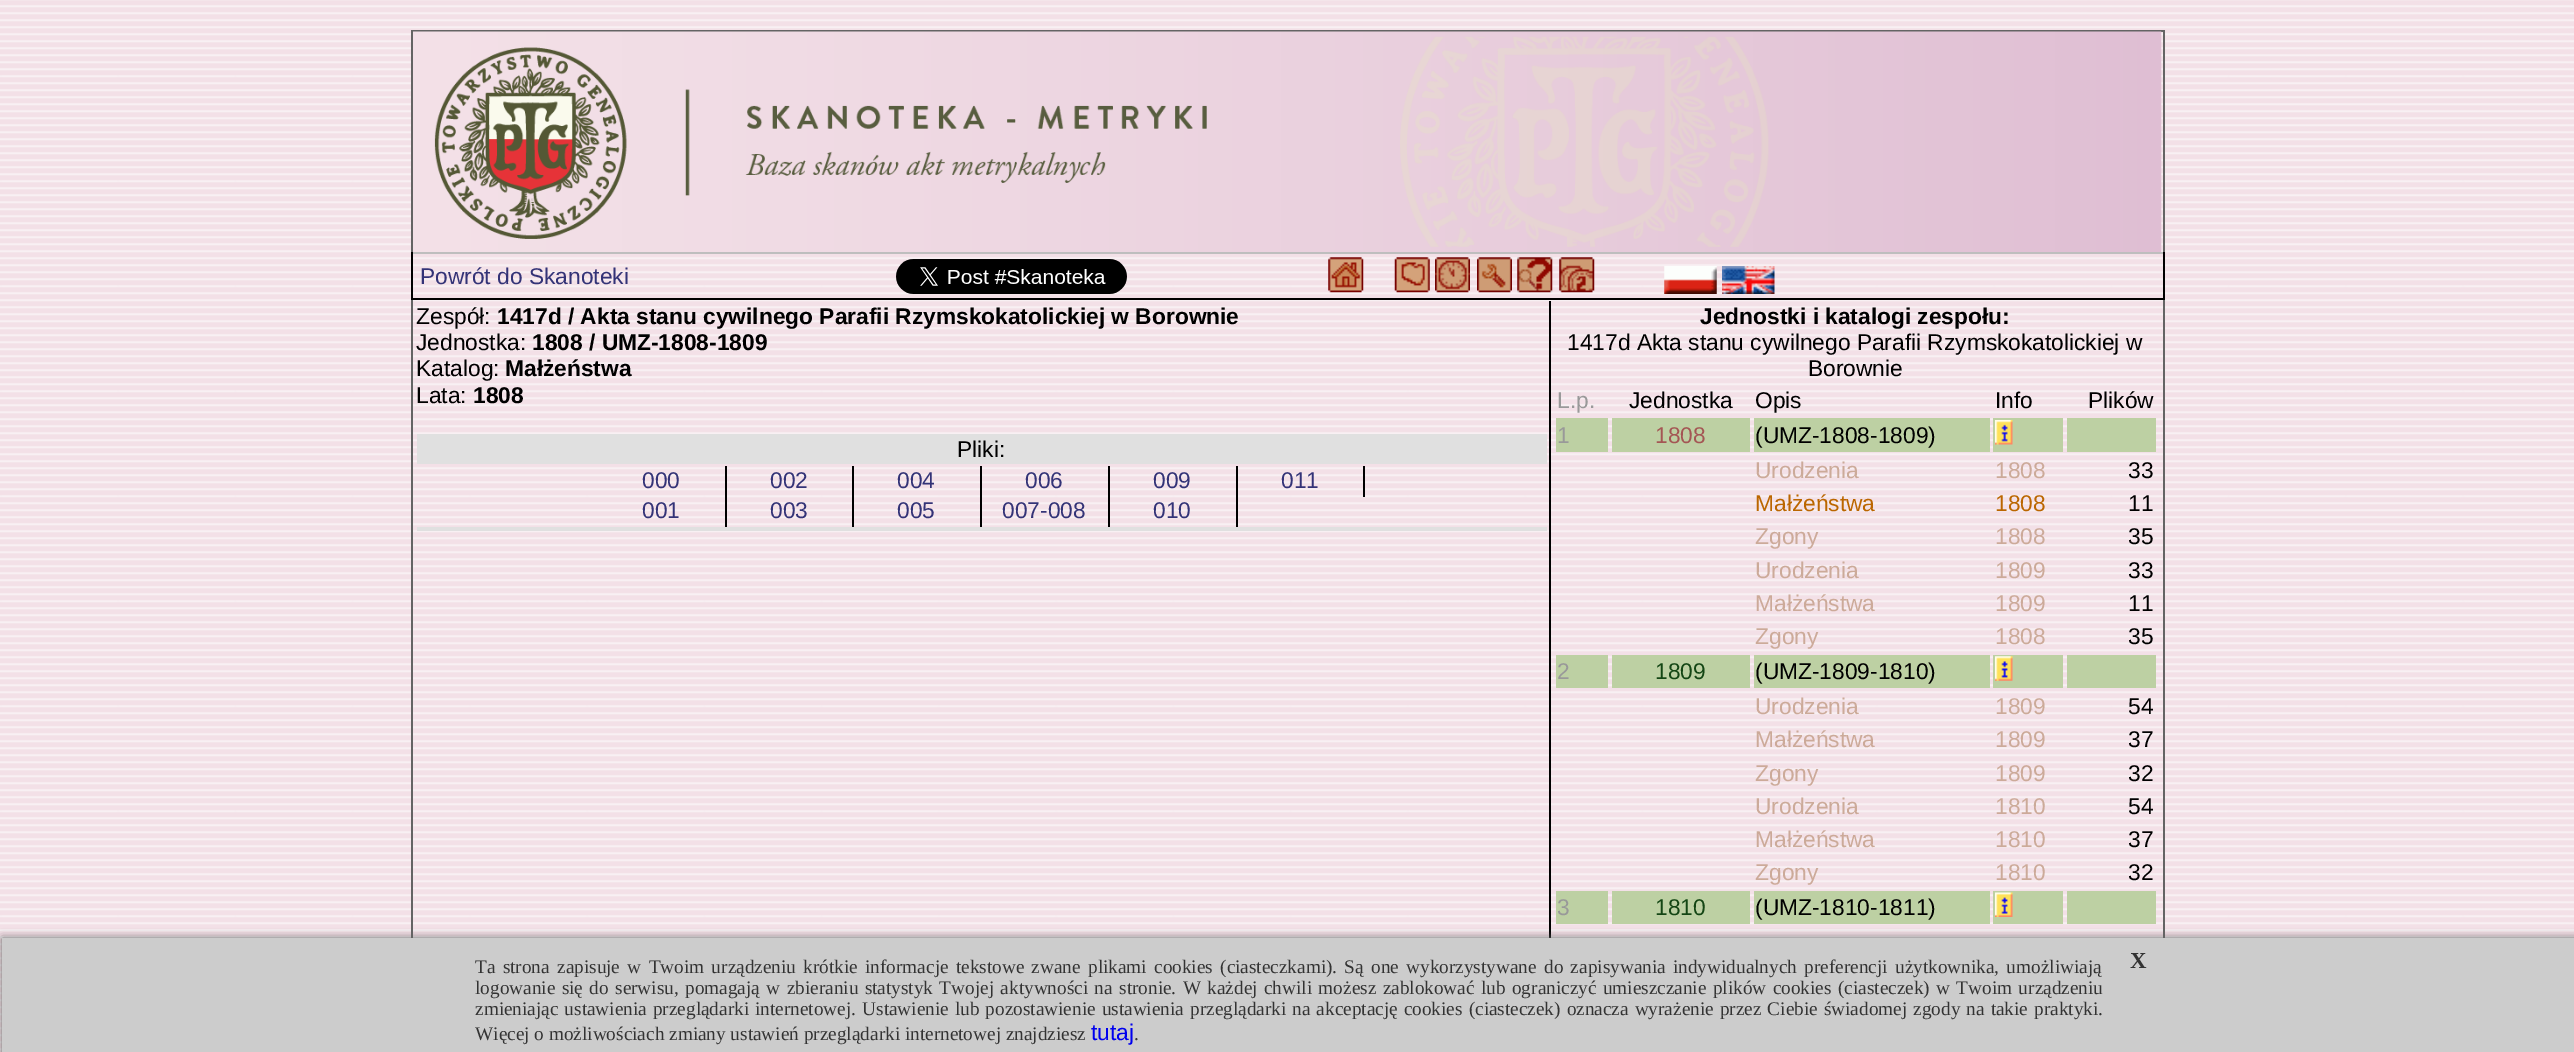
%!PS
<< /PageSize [2574 1052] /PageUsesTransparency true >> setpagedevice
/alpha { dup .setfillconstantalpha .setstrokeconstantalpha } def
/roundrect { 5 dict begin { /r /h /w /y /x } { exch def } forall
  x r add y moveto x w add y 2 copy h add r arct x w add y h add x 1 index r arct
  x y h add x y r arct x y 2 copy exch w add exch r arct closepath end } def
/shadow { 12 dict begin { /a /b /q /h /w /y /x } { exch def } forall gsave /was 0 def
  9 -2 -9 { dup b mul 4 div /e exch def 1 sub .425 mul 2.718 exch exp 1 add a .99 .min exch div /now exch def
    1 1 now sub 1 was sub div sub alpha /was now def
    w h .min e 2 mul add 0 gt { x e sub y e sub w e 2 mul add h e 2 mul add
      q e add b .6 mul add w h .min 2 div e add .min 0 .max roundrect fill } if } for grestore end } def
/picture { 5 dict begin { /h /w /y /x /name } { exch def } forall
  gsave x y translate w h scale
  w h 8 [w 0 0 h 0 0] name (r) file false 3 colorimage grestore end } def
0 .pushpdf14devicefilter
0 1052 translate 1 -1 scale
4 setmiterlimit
1 setgray
0 0 2574 1052 rectfill
(img1.rgb) 0 0 2574 1052 picture
0.392 setgray
411 30 1754 2 rectfill
2163 30 2 908 rectfill
411 30 2 908 rectfill
(img2.rgb) 413 31 1749 221 picture
0.745 setgray
411 252 1754 2 rectfill
0 setgray
2163 252 2 47 rectfill
411 298 1754 2 rectfill
411 252 2 47 rectfill
/LiberationSans-Regular [22.75 0 0 -22.75 0 0] selectfont
0.2 0.2 0.467 setrgbcolor
420 284 moveto (Powrót do Skanoteki) show
(img3.rgb) 896 259 231 35 picture
(img4.rgb) 1328 257 36 36 picture
(img5.rgb) 1394 257 36 36 picture
(img6.rgb) 1435 257 35 36 picture
(img7.rgb) 1477 257 35 36 picture
(img8.rgb) 1517 257 36 36 picture
(img9.rgb) 1559 257 36 36 picture
(img10.rgb) 1664 266 53 28 picture
(img11.rgb) 1722 266 53 28 picture
0 setgray
416 324 moveto (Zespół:) show
/LiberationSans-Bold [22.75 0 0 -22.75 0 0] selectfont
497 324 moveto (1417d / Akta stanu cywilnego Parafii Rzymskokatolickiej w Borownie) show
/LiberationSans-Regular [22.75 0 0 -22.75 0 0] selectfont
416 350 moveto (Jednostka:) show
/LiberationSans-Bold [22.75 0 0 -22.75 0 0] selectfont
532 350 moveto (1808 / UMZ-1808-1809) show
/LiberationSans-Regular [22.75 0 0 -22.75 0 0] selectfont
416 376 moveto (Katalog:) show
/LiberationSans-Bold [22.75 0 0 -22.75 0 0] selectfont
505 376 moveto (Małżeństwa) show
/LiberationSans-Regular [22.75 0 0 -22.75 0 0] selectfont
416 403 moveto (Lata:) show
/LiberationSans-Bold [22.75 0 0 -22.75 0 0] selectfont
473 403 moveto (1808) show
0.878 setgray
417 434 1130 30 rectfill
/LiberationSans-Regular [22.75 0 0 -22.75 0 0] selectfont
0 setgray
957 457 moveto (Pliki:) show
0.2 0.2 0.467 setrgbcolor
642 488 moveto (000) show
770 488 moveto (002) show
897 488 moveto (004) show
1025 488 moveto (006) show
1153 488 moveto (009) show
0 setgray
1363 466 2 31 rectfill
0.2 0.2 0.467 setrgbcolor
1281 488 moveto (011) show
0 setgray
725 466 2 61 rectfill
0.2 0.2 0.467 setrgbcolor
642 518 moveto (001) show
0 setgray
852 466 2 61 rectfill
0.2 0.2 0.467 setrgbcolor
770 518 moveto (003) show
0 setgray
980 466 2 61 rectfill
0.2 0.2 0.467 setrgbcolor
897 518 moveto (005) show
0 setgray
1108 466 2 61 rectfill
0.2 0.2 0.467 setrgbcolor
1002 518 moveto (007-008) show
0 setgray
1236 466 2 61 rectfill
0.2 0.2 0.467 setrgbcolor
1153 518 moveto (010) show
0.878 setgray
417 527 1130 4 rectfill
0 setgray
1549 301 2 637 rectfill
/LiberationSans-Bold [22.75 0 0 -22.75 0 0] selectfont
1700 324 moveto (Jednostki i katalogi zespołu:) show
/LiberationSans-Regular [22.75 0 0 -22.75 0 0] selectfont
1567 350 moveto (1417d Akta stanu cywilnego Parafii Rzymskokatolickiej w) show
1808 376 moveto (Borownie) show
0.6 setgray
1557 408 moveto (L.p.) show
0 setgray
1629 408 moveto (Jednostka) show
1755 408 moveto (Opis) show
1995 408 moveto (Info) show
2088 408 moveto (Plików) show
0.741 0.816 0.639 setrgbcolor
1556 418 52 34 rectfill
0.6 setgray
1557 443 moveto (1) show
0.741 0.816 0.639 setrgbcolor
1612 418 138 34 rectfill
0.643 0.337 0.329 setrgbcolor
1655 443 moveto (1808) show
0.741 0.816 0.639 setrgbcolor
1754 418 236 34 rectfill
0 setgray
1755 443 moveto (\(UMZ-1808-1809\)) show
0.741 0.816 0.639 setrgbcolor
1993 418 70 34 rectfill
(img12.rgb) 1995 420 18 25 picture
2067 418 89 34 rectfill
0.8 0.667 0.6 setrgbcolor
1755 478 moveto (Urodzenia) show
1995 478 moveto (1808) show
0 setgray
2128 478 moveto (33) show
0.733 0.4 0 setrgbcolor
1755 511 moveto (Małżeństwa) show
1995 511 moveto (1808) show
0 setgray
2128 511 moveto (11) show
0.8 0.667 0.6 setrgbcolor
1755 544 moveto (Zgony) show
1995 544 moveto (1808) show
0 setgray
2128 544 moveto (35) show
0.8 0.667 0.6 setrgbcolor
1755 578 moveto (Urodzenia) show
1995 578 moveto (1809) show
0 setgray
2128 578 moveto (33) show
0.8 0.667 0.6 setrgbcolor
1755 611 moveto (Małżeństwa) show
1995 611 moveto (1809) show
0 setgray
2128 611 moveto (11) show
0.8 0.667 0.6 setrgbcolor
1755 644 moveto (Zgony) show
1995 644 moveto (1808) show
0 setgray
2128 644 moveto (35) show
0.741 0.816 0.639 setrgbcolor
1556 655 52 33 rectfill
0.6 setgray
1557 679 moveto (2) show
0.741 0.816 0.639 setrgbcolor
1612 655 138 33 rectfill
0.078 0.275 0.078 setrgbcolor
1655 679 moveto (1809) show
0.741 0.816 0.639 setrgbcolor
1754 655 236 33 rectfill
0 setgray
1755 679 moveto (\(UMZ-1809-1810\)) show
0.741 0.816 0.639 setrgbcolor
1993 655 70 33 rectfill
(img13.rgb) 1995 656 18 25 picture
2067 655 89 33 rectfill
0.8 0.667 0.6 setrgbcolor
1755 714 moveto (Urodzenia) show
1995 714 moveto (1809) show
0 setgray
2128 714 moveto (54) show
0.8 0.667 0.6 setrgbcolor
1755 747 moveto (Małżeństwa) show
1995 747 moveto (1809) show
0 setgray
2128 747 moveto (37) show
0.8 0.667 0.6 setrgbcolor
1755 781 moveto (Zgony) show
1995 781 moveto (1809) show
0 setgray
2128 781 moveto (32) show
0.8 0.667 0.6 setrgbcolor
1755 814 moveto (Urodzenia) show
1995 814 moveto (1810) show
0 setgray
2128 814 moveto (54) show
0.8 0.667 0.6 setrgbcolor
1755 847 moveto (Małżeństwa) show
1995 847 moveto (1810) show
0 setgray
2128 847 moveto (37) show
0.8 0.667 0.6 setrgbcolor
1755 880 moveto (Zgony) show
1995 880 moveto (1810) show
0 setgray
2128 880 moveto (32) show
0.741 0.816 0.639 setrgbcolor
1556 891 52 33 rectfill
0.6 setgray
1557 915 moveto (3) show
0.741 0.816 0.639 setrgbcolor
1612 891 138 33 rectfill
0.078 0.275 0.078 setrgbcolor
1655 915 moveto (1810) show
0.741 0.816 0.639 setrgbcolor
1754 891 236 33 rectfill
0 setgray
1755 915 moveto (\(UMZ-1810-1811\)) show
0.741 0.816 0.639 setrgbcolor
1993 891 70 33 rectfill
(img14.rgb) 1995 892 18 25 picture
2067 891 89 33 rectfill
0.4 setgray
2 938 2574 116 0 4.5 1 shadow
0.8 setgray
2 938 2572 114 rectfill
/LiberationSerif-Regular [19.25 0 0 -19.25 0 0] selectfont
0.2 setgray
475 973 moveto 2.5 0 32 (Ta strona zapisuje w Twoim urządzeniu krótkie informacje tekstowe zwane plikami cookies \(ciasteczkami\). Są one wykorzystywane do zapisywania indywidualnych preferencji użytkownika, umożliwiają) widthshow
/LiberationSerif-Bold [22.75 0 0 -22.75 0 0] selectfont
2130 968 moveto (X) show
/LiberationSerif-Regular [19.25 0 0 -19.25 0 0] selectfont
475 994 moveto 1.6 0 32 (logowanie się do serwisu, pomagają w zbieraniu statystyk Twojej aktywności na stronie. W każdej chwili możesz zablokować lub ograniczyć umieszczanie plików cookies \(ciasteczek\) w Twoim urządzeniu) widthshow
475 1015 moveto 1.25 0 32 (zmieniając ustawienia przeglądarki internetowej. Ustawienie lub pozostawienie ustawienia przeglądarki na akceptację cookies \(ciasteczek\) oznacza wyrażenie przez Ciebie świadomej zgody na takie praktyki.) widthshow
475 1040 moveto (Więcej o możliwościach zmiany ustawień przeglądarki internetowej znajdziesz) show
/LiberationSans-Regular [22.75 0 0 -22.75 0 0] selectfont
0 0 0.933 setrgbcolor
1091 1040 moveto (tutaj) show
/LiberationSerif-Regular [19.25 0 0 -19.25 0 0] selectfont
0.2 setgray
1134 1040 moveto (.) show
.poppdf14devicefilter showpage
